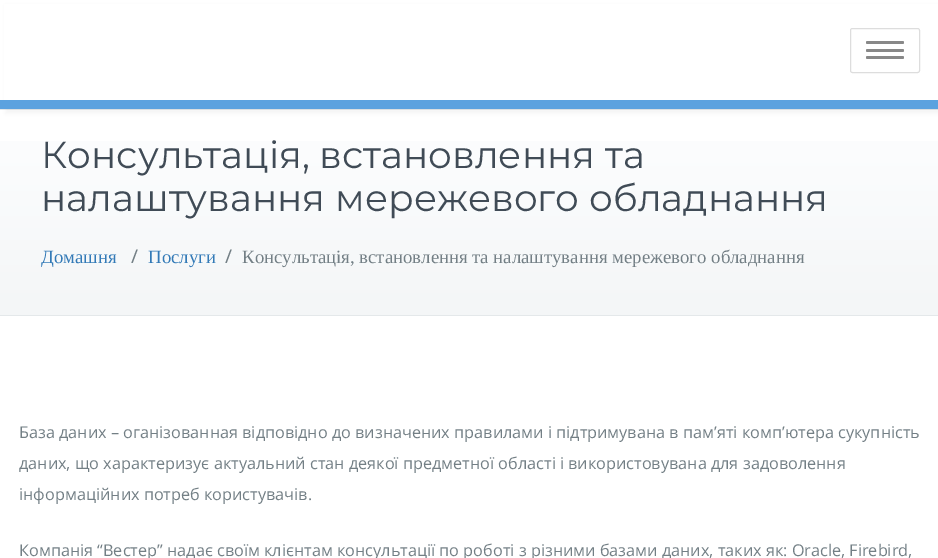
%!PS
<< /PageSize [938 558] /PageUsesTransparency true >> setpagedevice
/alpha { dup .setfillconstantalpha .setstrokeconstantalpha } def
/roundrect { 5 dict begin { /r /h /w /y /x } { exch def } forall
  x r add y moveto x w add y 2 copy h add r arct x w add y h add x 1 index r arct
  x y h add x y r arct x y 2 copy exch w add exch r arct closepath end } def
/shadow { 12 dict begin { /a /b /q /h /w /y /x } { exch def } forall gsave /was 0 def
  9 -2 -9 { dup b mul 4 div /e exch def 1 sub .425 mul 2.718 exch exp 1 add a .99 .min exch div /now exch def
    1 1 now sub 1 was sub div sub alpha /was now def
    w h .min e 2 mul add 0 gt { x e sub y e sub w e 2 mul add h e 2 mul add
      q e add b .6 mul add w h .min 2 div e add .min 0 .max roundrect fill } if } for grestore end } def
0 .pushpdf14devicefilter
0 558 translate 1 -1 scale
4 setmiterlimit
1 setgray
0 0 938 558 rectfill
0.894 0.91 0.918 setrgbcolor
0 109 938 1 rectfill
0 setgray
5 5 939 109 0 2 0.04 shadow
1 setgray
4 4 934 96 rectfill
0.361 0.635 0.875 setrgbcolor
0 100 938 9 rectfill
0.867 setgray
850.5 28.5 69 44 2 roundrect stroke
0.533 setgray
866 41 38 3 1.5 roundrect fill
866 49 38 3 1.5 roundrect fill
866 56 38 3 1.5 roundrect fill
gsave newpath 0 141 moveto 938 141 lineto 938 315 lineto 0 315 lineto closepath clip newpath
<< /ShadingType 2 /ColorSpace /DeviceRGB /Coords [469 110 469 315] /Extend [true true] /Function << /FunctionType 2 /Domain [0 1] /C0 [0.996 0.996 1] /C1 [0.957 0.965 0.969] /N 1 >> >> shfill grestore
0.894 0.91 0.918 setrgbcolor
0 315 938 1 rectfill
/Montserrat-Regular [37.5 0 0 -37.5 0 0] selectfont
0.251 0.294 0.337 setrgbcolor
41 168 moveto (Консультація, встановлення та) show
41 211 moveto (налаштування мережевого обладнання) show
/LiberationSerif-Regular [18.75 0 0 -18.75 0 0] selectfont
0.2 0.478 0.718 setrgbcolor
41 263 moveto (Домашня) show
/DroidSans-Regular [18.75 0 0 -18.75 0 0] selectfont
0.451 0.498 0.522 setrgbcolor
131 263 moveto (/) show
/LiberationSerif-Regular [18.75 0 0 -18.75 0 0] selectfont
0.2 0.478 0.718 setrgbcolor
148 263 moveto (Послуги) show
/DroidSans-Regular [18.75 0 0 -18.75 0 0] selectfont
0.451 0.498 0.522 setrgbcolor
225 263 moveto (/) show
/LiberationSerif-Regular [18.75 0 0 -18.75 0 0] selectfont
242 263 moveto (Консультація, встановлення та налаштування мережевого обладнання) show
/OpenSans-Regular [16.25 0 0 -16.25 0 0] selectfont
19 438 moveto (База даних – оганізованная відповідно до визначених правилами і підтримувана в пам’яті комп’ютера сукупність) show
19 469 moveto (даних, що характеризує актуальний стан деякої предметної області і використовувана для задоволення) show
19 500 moveto (інформаційних потреб користувачів.) show
19 556 moveto (Компанія “Вестер” надає своїм клієнтам консультації по роботі з різними базами даних, таких як: Oracle, Firebird,) show
.poppdf14devicefilter showpage
